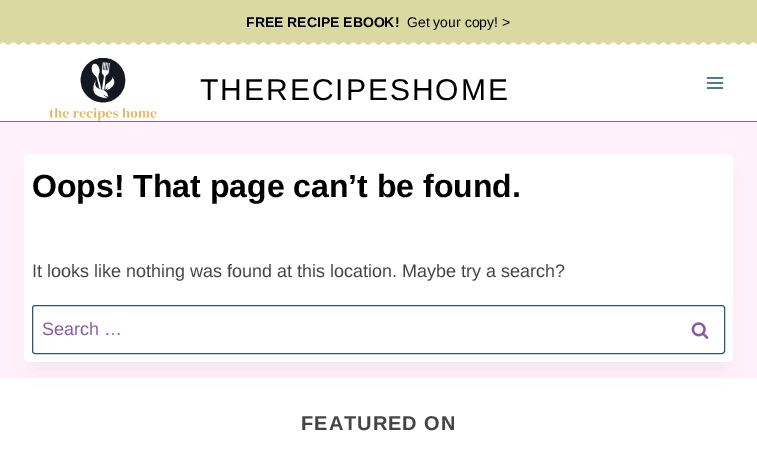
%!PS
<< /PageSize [757 466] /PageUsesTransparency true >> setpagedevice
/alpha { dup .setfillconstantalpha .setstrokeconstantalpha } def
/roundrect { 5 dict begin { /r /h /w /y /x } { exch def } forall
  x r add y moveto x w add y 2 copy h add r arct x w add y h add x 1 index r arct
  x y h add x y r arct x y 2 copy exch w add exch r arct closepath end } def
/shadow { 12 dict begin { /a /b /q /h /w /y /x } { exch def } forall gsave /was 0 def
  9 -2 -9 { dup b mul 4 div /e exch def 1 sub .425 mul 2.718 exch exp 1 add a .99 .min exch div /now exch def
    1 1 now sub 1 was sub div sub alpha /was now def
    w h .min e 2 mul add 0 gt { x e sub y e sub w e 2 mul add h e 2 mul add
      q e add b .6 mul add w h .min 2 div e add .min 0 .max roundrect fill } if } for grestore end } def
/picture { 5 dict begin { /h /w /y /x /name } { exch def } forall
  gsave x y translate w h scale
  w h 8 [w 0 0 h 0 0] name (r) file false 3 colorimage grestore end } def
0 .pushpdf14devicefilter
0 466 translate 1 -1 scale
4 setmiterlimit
1 0.945 0.98 setrgbcolor
0 0 757 466 rectfill
1 setgray
0 45 757 76 rectfill
0.859 0.851 0.635 setrgbcolor
0 0 757 45 rectfill
(img1.rgb) 0 42 757 3 picture
/LiberationSans-Bold [14 0 0 -14 0 0] selectfont
0 setgray
246 27 moveto (FREE RECIPE EBOOK!) show
/LiberationSans-Regular [14 0 0 -14 0 0] selectfont
407 27 moveto (Get your copy! >) show
0.541 0.361 0.616 setrgbcolor
0 121 757 1 rectfill
(img2.rgb) 49 58 108 63 picture
/LiberationSans-Regular [30 0 0 -30 0 0] selectfont
0 setgray
200 100 moveto 2 0 (THERECIPESHOME) ashow
(img3.rgb) 706 77 18 12 picture
1 setgray
0 378 757 88 rectfill
0 setgray
34 179 689 188 0 12.5 0.05 shadow
1 setgray
24 154 709 208 4 roundrect fill
/LiberationSans-Bold [32 0 0 -32 0 0] selectfont
0 setgray
32 197 moveto (Oops! That page can’t be found.) show
/LiberationSans-Regular [18 0 0 -18 0 0] selectfont
0.267 setgray
32 277 moveto (It looks like nothing was found at this location. Maybe try a search?) show
0.149 0.333 0.498 setrgbcolor
32.5 305.5 692 48 2.5 roundrect stroke
0.541 0.361 0.616 setrgbcolor
42 335 moveto (Search …) show
(img4.rgb) 691 322 18 17 picture
/LiberationSans-Bold [20 0 0 -20 0 0] selectfont
0.267 setgray
301 430 moveto 1 0 (FEATURED ON) ashow
.poppdf14devicefilter showpage
